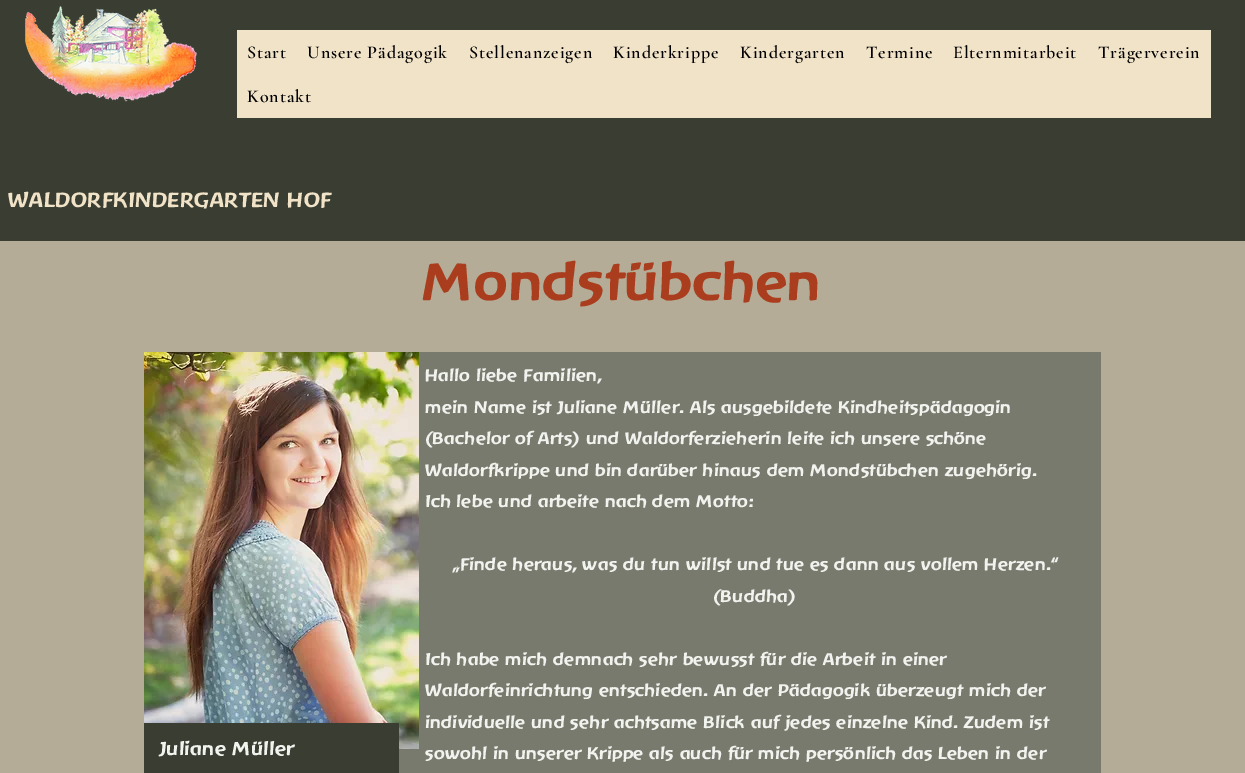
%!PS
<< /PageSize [1245 773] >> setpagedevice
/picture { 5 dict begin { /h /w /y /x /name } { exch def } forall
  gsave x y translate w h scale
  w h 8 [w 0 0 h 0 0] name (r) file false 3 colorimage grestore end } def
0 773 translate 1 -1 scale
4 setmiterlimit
0.224 0.239 0.196 setrgbcolor
0 0 1245 773 rectfill
(img1.rgb) 25 6 172 96 picture
0.945 0.89 0.784 setrgbcolor
237 30 974 88 rectfill
/CormorantGaramond-SemiBold [18 0 0 -18 0 0] selectfont
0 setgray
247 58 moveto 0.9 0 (Start) ashow
307 58 moveto 0.9 0 (Unsere Pädagogik) ashow
469 58 moveto 0.9 0 (Stellenanzeigen) ashow
613 58 moveto 0.9 0 (Kinderkrippe) ashow
740 58 moveto 0.9 0 (Kindergarten) ashow
866 58 moveto 0.9 0 (Termine) ashow
953 58 moveto 0.9 0 (Elternmitarbeit) ashow
1098 58 moveto 0.9 0 (Trägerverein) ashow
247 102 moveto 0.9 0 (Kontakt) ashow
/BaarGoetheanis-Regular [22 0 0 -22 0 0] selectfont
0.945 0.89 0.784 setrgbcolor
8 207 moveto (WALDORFKINDERGARTEN HOF) show
0.706 0.675 0.592 setrgbcolor
0 241 1245 532 rectfill
/BaarGoetheanis-Regular [56 0 0 -56 0 0] selectfont
0.667 0.239 0.114 setrgbcolor
422 300 moveto (Mondstübchen) show
0.475 0.478 0.431 setrgbcolor
399 352 702 421 rectfill
(img2.rgb) 144 352 275 397 picture
/BaarGoetheanis-Regular [18 0 0 -18 0 0] selectfont
0.945 0.953 0.933 setrgbcolor
425 381 moveto (Hallo liebe Familien,) show
425 413 moveto (mein Name ist Juliane Müller. Als ausgebildete Kindheitspädagogin) show
425 444 moveto (\(Bachelor of Arts\) und Waldorferzieherin leite ich unsere schöne) show
425 476 moveto (Waldorfkrippe und bin darüber hinaus dem Mondstübchen zugehörig.) show
425 507 moveto (Ich lebe und arbeite nach dem Motto:) show
452 570 moveto („Finde heraus, was du tun willst und tue es dann aus vollem Herzen.“) show
713 602 moveto (\(Buddha\)) show
425 665 moveto (Ich habe mich demnach sehr bewusst für die Arbeit in einer) show
425 696 moveto (Waldorfeinrichtung entschieden. An der Pädagogik überzeugt mich der) show
425 728 moveto (individuelle und sehr achtsame Blick auf jedes einzelne Kind. Zudem ist) show
425 759 moveto (sowohl in unserer Krippe als auch für mich persönlich das Leben in der) show
0.224 0.239 0.196 setrgbcolor
144 723 255 50 rectfill
/BaarGoetheanis-Regular [20 0 0 -20 0 0] selectfont
0.945 0.953 0.933 setrgbcolor
159 755 moveto (Juliane Müller) show
showpage
